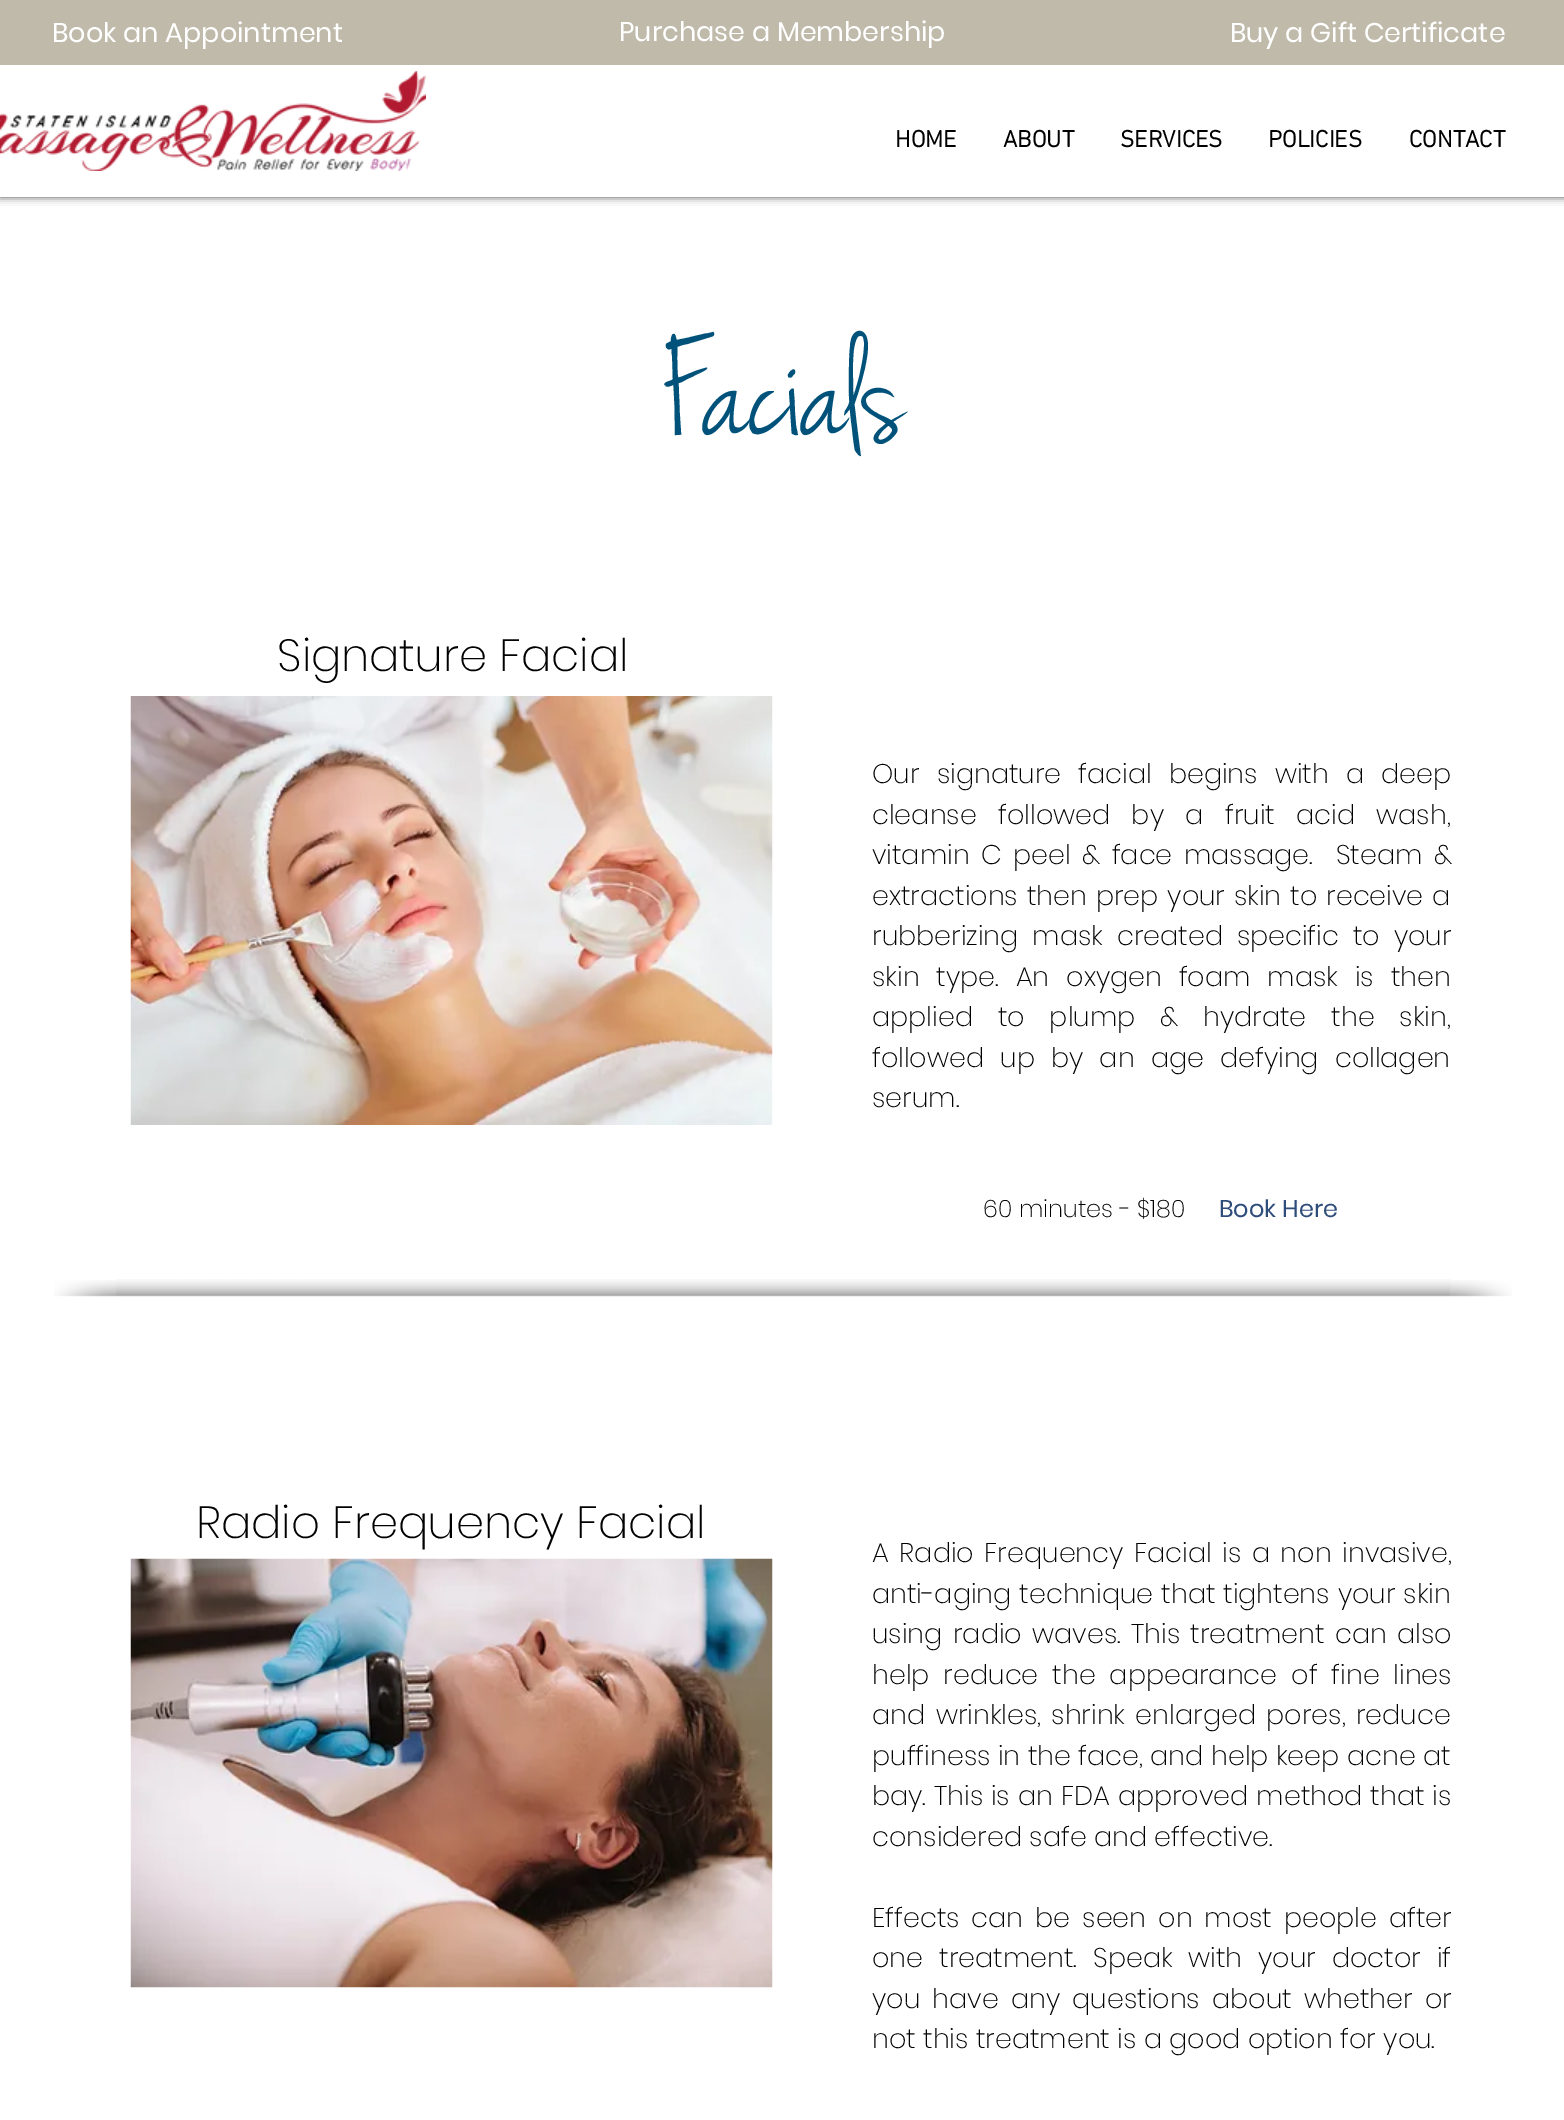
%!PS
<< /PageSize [1564 2120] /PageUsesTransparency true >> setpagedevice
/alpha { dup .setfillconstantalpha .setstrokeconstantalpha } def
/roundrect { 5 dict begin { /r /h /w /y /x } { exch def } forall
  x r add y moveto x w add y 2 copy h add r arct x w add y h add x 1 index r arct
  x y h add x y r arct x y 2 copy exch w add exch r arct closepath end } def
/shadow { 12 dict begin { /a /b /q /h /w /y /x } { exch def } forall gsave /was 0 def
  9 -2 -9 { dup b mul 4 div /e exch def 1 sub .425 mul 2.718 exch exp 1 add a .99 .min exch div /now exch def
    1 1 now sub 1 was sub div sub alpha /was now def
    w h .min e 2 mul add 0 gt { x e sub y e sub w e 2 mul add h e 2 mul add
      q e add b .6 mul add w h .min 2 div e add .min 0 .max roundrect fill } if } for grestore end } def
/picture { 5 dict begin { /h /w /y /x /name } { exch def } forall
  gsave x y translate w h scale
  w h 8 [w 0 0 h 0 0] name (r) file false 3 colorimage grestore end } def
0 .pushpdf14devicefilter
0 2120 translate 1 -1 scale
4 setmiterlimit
1 setgray
0 0 1564 2120 rectfill
0 setgray
0 0 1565 197 0 4 0.7 shadow
1 setgray
0 65 1564 132 rectfill
0.749 0.729 0.667 setrgbcolor
0 0 1564 65 rectfill
/Poppins-Regular [27 0 0 -27 0 0] selectfont
1 setgray
52 42 moveto (Book an Appointment) show
619 41 moveto (Purchase a Membership) show
1230 42 moveto (Buy a Gift Certificate) show
(img1.rgb) 0 71 426 100 picture
/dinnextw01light-Bold [24 0 0 -24 0 0] selectfont
0 setgray
895 147 moveto (HOME) show
1003 147 moveto (ABOUT) show
1120 147 moveto (SERVICES) show
1268 147 moveto (POLICIES) show
1409 147 moveto (CONTACT) show
/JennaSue-Regular [150 0 0 -150 0 0] selectfont
0 0.322 0.478 setrgbcolor
661 435 moveto (Facials) show
/Poppins-ExtraLight [45 0 0 -45 0 0] selectfont
0 setgray
277 671 moveto (Signature Facial) show
(img2.rgb) 130 696 643 429 picture
/Poppins-ExtraLight [27 0 0 -27 0 0] selectfont
872 783 moveto 9.75 0 32 (Our signature facial begins with a deep) widthshow
872 824 moveto 14 0 32 (cleanse followed by a fruit acid wash,) widthshow
872 864 moveto 4 0 32 (vitamin C peel & face massage.  Steam &) widthshow
872 905 moveto 1.5 0 32 (extractions then prep your skin to receive a) widthshow
872 945 moveto 6.5 0 32 (rubberizing mask created specific to your) widthshow
872 986 moveto 9.5 0 32 (skin type. An oxygen foam mask is then) widthshow
872 1026 moveto 17.5 0 32 (applied to plump & hydrate the skin,) widthshow
872 1067 moveto 8.75 0 32 (followed up by an age defying collagen) widthshow
872 1107 moveto (serum.) show
/Poppins-ExtraLight [24 0 0 -24 0 0] selectfont
983 1217 moveto (60 minutes - $180) show
/Poppins-Regular [24 0 0 -24 0 0] selectfont
0.18 0.302 0.482 setrgbcolor
1219 1217 moveto (Book Here) show
(img3.rgb) 115 1279 1336 18 picture
(img4.rgb) 54 1280 62 17 picture
(img5.rgb) 1450 1280 62 17 picture
/Poppins-ExtraLight [45 0 0 -45 0 0] selectfont
0 setgray
196 1538 moveto (Radio Frequency Facial) show
(img6.rgb) 130 1558 643 430 picture
/Poppins-ExtraLight [27 0 0 -27 0 0] selectfont
872 1562 moveto 3.25 0 32 (A Radio Frequency Facial is a non invasive,) widthshow
872 1603 moveto 0.5 0 32 (anti-aging technique that tightens your skin) widthshow
872 1643 moveto 3 0 32 (using radio waves. This treatment can also) widthshow
872 1684 moveto 6.5 0 32 (help reduce the appearance of fine lines) widthshow
872 1724 moveto 3 0 32 (and wrinkles, shrink enlarged pores, reduce) widthshow
872 1765 moveto (puffiness in the face, and help keep acne at) show
872 1805 moveto 0.5 0 32 (bay. This is an FDA approved method that is) widthshow
872 1846 moveto (considered safe and effective.) show
872 1927 moveto 4.5 0 32 (Effects can be seen on most people after) widthshow
872 1967 moveto 8.5 0 32 (one treatment. Speak with your doctor if) widthshow
872 2008 moveto 4.75 0 32 (you have any questions about whether or) widthshow
872 2048 moveto (not this treatment is a good option for you.) show
.poppdf14devicefilter showpage
